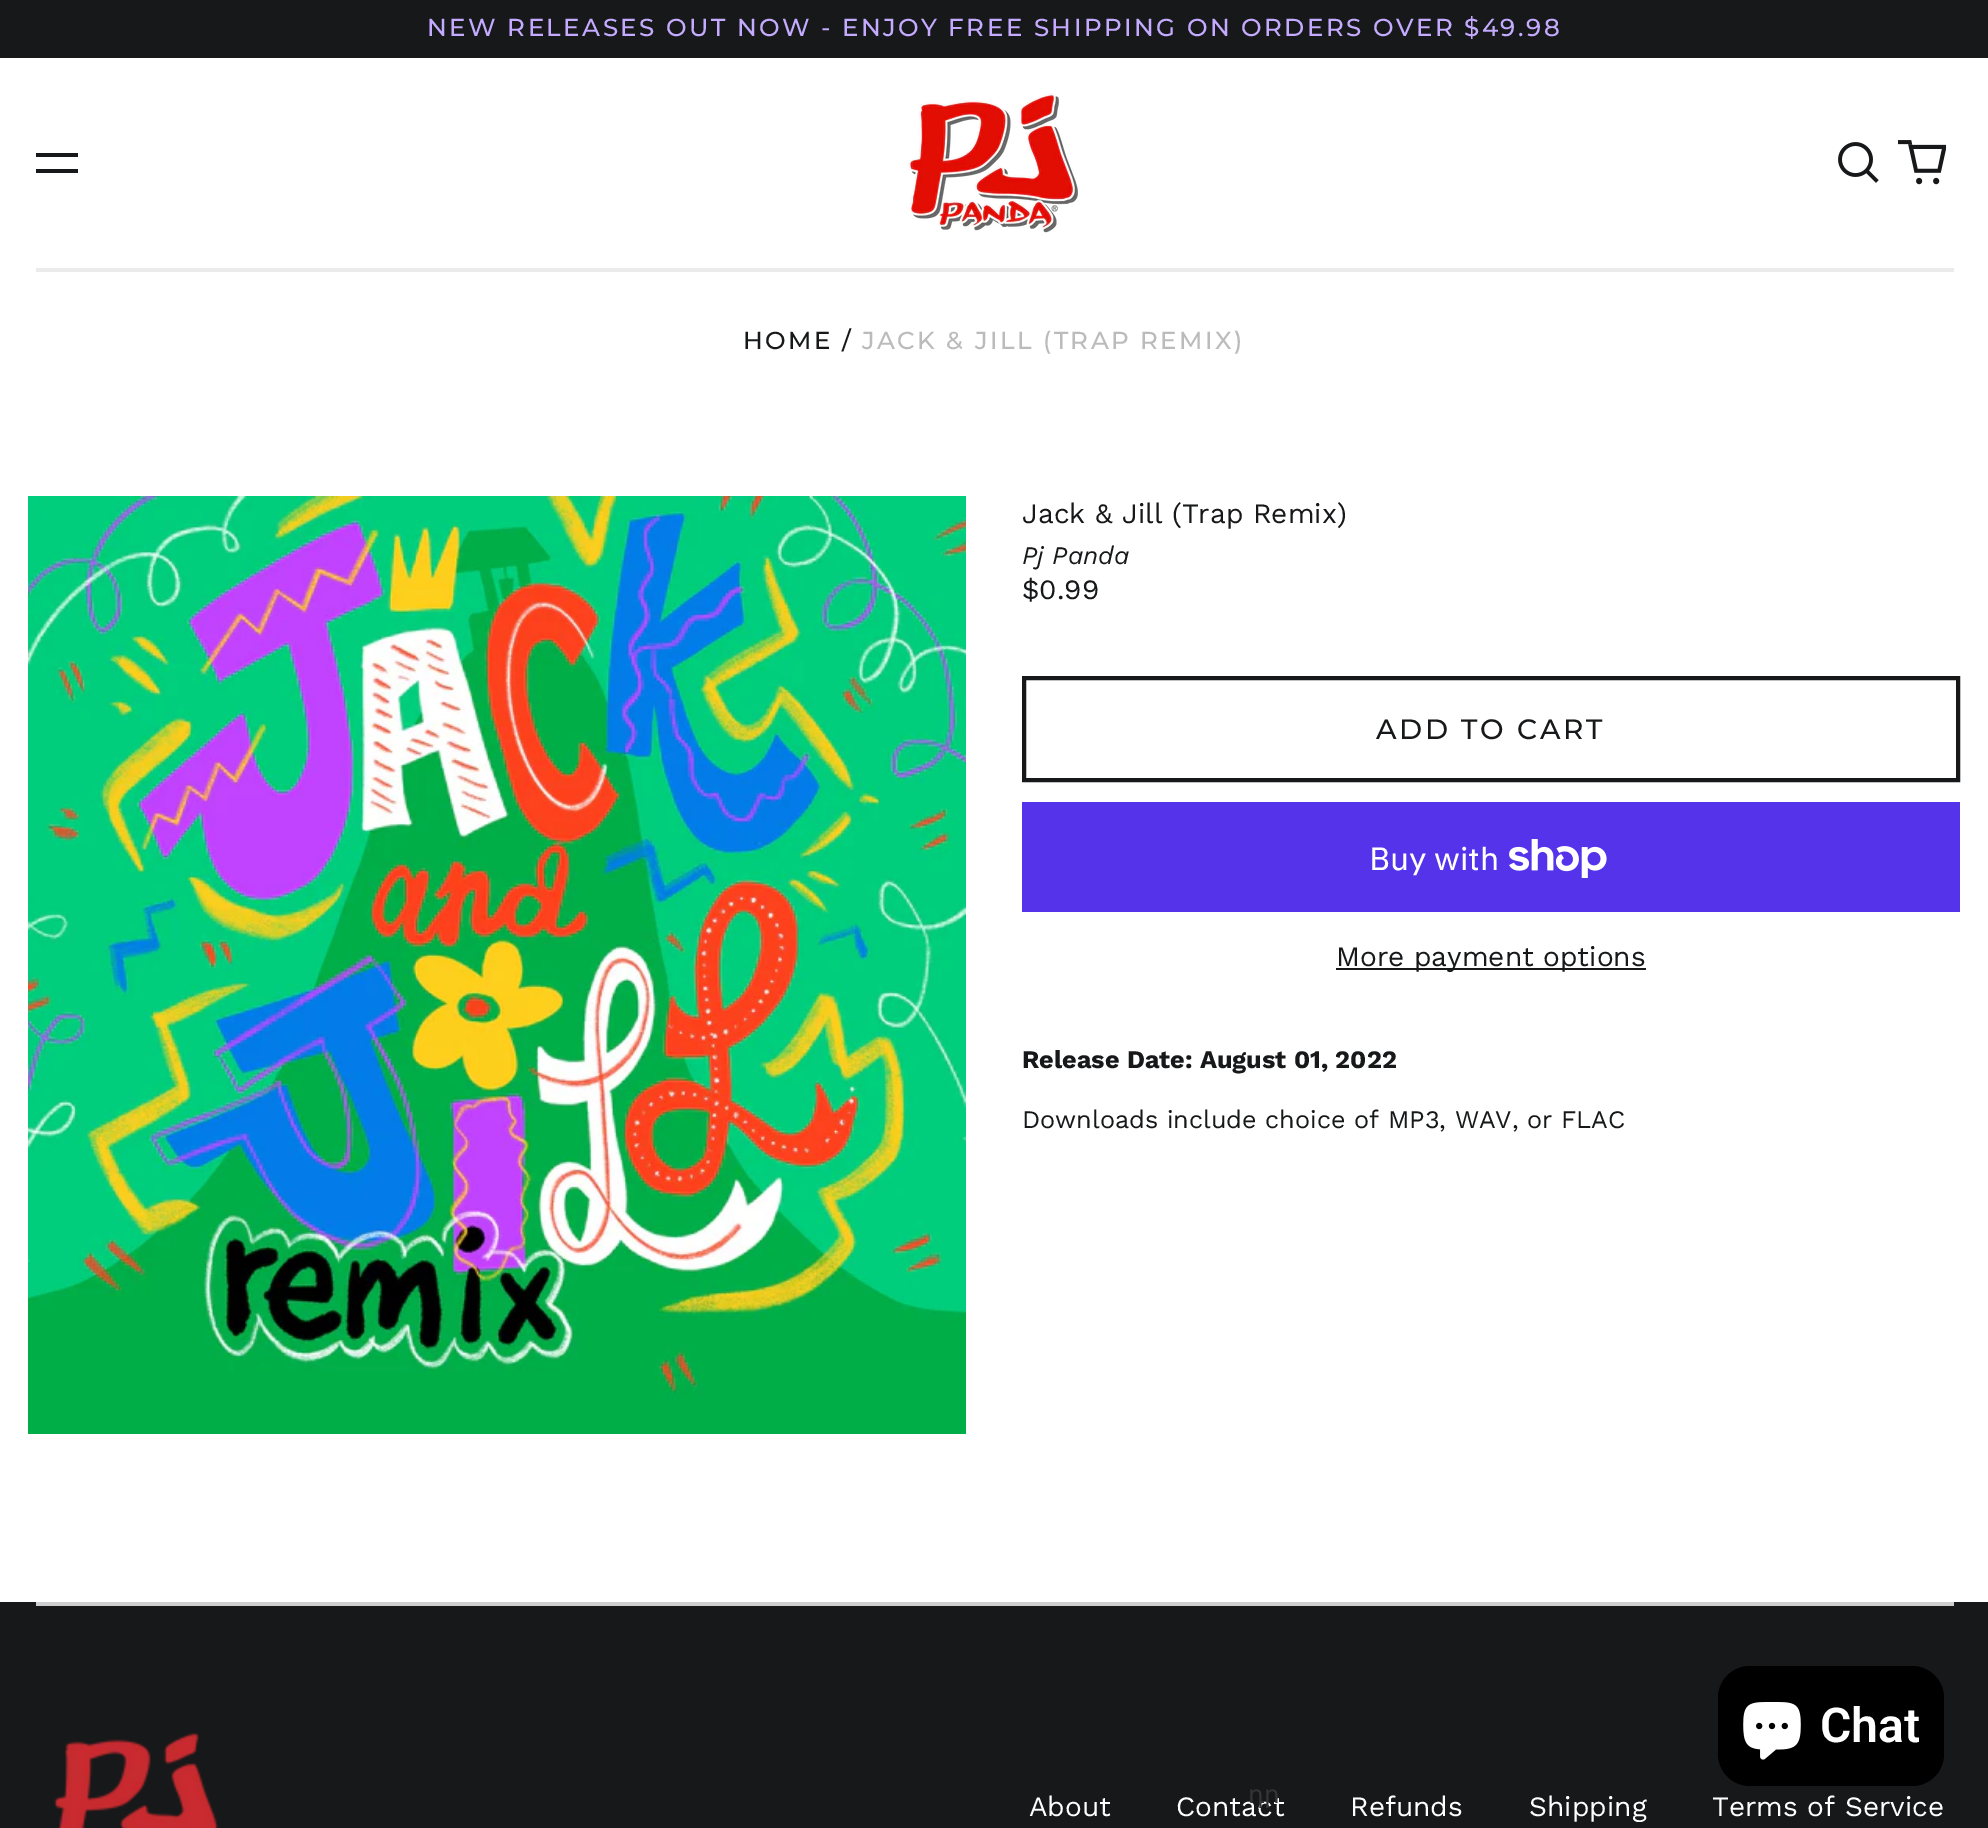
%!PS
<< /PageSize [1988 1828] >> setpagedevice
/roundrect { 5 dict begin { /r /h /w /y /x } { exch def } forall
  x r add y moveto x w add y 2 copy h add r arct x w add y h add x 1 index r arct
  x y h add x y r arct x y 2 copy exch w add exch r arct closepath end } def
/picture { 5 dict begin { /h /w /y /x /name } { exch def } forall
  gsave x y translate w h scale
  w h 8 [w 0 0 h 0 0] name (r) file false 3 colorimage grestore end } def
0 1828 translate 1 -1 scale
4 setmiterlimit
1 setgray
0 0 1988 1828 rectfill
0.086 0.094 0.098 setrgbcolor
0 0 1988 58 rectfill
/Montserrat-Medium [24.5 0 0 -24.5 0 0] selectfont
0.769 0.671 1 setrgbcolor
427 36 moveto 2.45 0 (NEW RELEASES OUT NOW - ENJOY FREE SHIPPING ON ORDERS OVER $49.98) ashow
0.922 setgray
36 268 1918 4 rectfill
0.086 0.094 0.098 setrgbcolor
newpath 78 169 moveto 78 173 lineto 36 173 lineto 36 169 lineto closepath 78 153 moveto 78 157 lineto 36 157 lineto 36 153 lineto closepath eofill
(img1.rgb) 908 93 170 140 picture
(img2.rgb) 1838 142 41 41 picture
(img3.rgb) 1898 140 48 45 picture
743 349 moveto 2.45 0 (HOME /) ashow
0.733 setgray
862 349 moveto 2.45 0 (JACK & JILL \(TRAP REMIX\)) ashow
(img4.rgb) 28 496 938 938 picture
/WorkSans-Regular [28 0 0 -28 0 0] selectfont
0.086 0.094 0.098 setrgbcolor
1022 523 moveto (Jack & Jill \(Trap Remix\)) show
/WorkSans-Italic [25.2 0 0 -25.2 0 0] selectfont
1022 564 moveto (Pj Panda) show
/WorkSans-Regular [28 0 0 -28 0 0] selectfont
1022 599 moveto ($0.99) show
4 setlinewidth
1024 678 934 102 rectstroke
/Montserrat-Medium [28 0 0 -28 0 0] selectfont
1376 739 moveto 2.75 0 (ADD TO CART) ashow
0.329 0.2 0.922 setrgbcolor
1022 802 938 110 rectfill
/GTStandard-Regular [32 0 0 -32 0 0] selectfont
1 setgray
1369 870 moveto (Buy with) show
(img5.rgb) 1509 839 98 39 picture
0.086 0.094 0.098 setrgbcolor
1336 968 310 2 rectfill
/WorkSans-Regular [28 0 0 -28 0 0] selectfont
1336 966 moveto (More payment options) show
/WorkSans-Bold [25.2 0 0 -25.2 0 0] selectfont
1022 1068 moveto (Release Date: August 01, 2022) show
/WorkSans-Regular [25.2 0 0 -25.2 0 0] selectfont
1022 1128 moveto (Downloads include choice of MP3, WAV, or FLAC) show
0 1602 1988 226 rectfill
0 setgray
1718 1666 226 120 32 roundrect fill
(img6.rgb) 1743 1702 58 58 picture
/Roboto-SemiBold [48 0 0 -48 0 0] selectfont
1 setgray
1820 1742 moveto (Chat) show
/WorkSans-Regular [28 0 0 -28 0 0] selectfont
1176 1816 moveto (Contact) show
/DejaVuSans-Regular [24.5 0 0 -24.5 0 0] selectfont
0.204 0.208 0.212 setrgbcolor
1248 1803 moveto (դր) show
0.812 setgray
36 1602 1918 4 rectfill
(img7.rgb) 53 1733 166 95 picture
/WorkSans-Regular [28 0 0 -28 0 0] selectfont
1 setgray
1029 1816 moveto (About) show
1350 1816 moveto (Refunds) show
1529 1816 moveto (Shipping) show
1712 1816 moveto (Terms of Service) show
showpage
